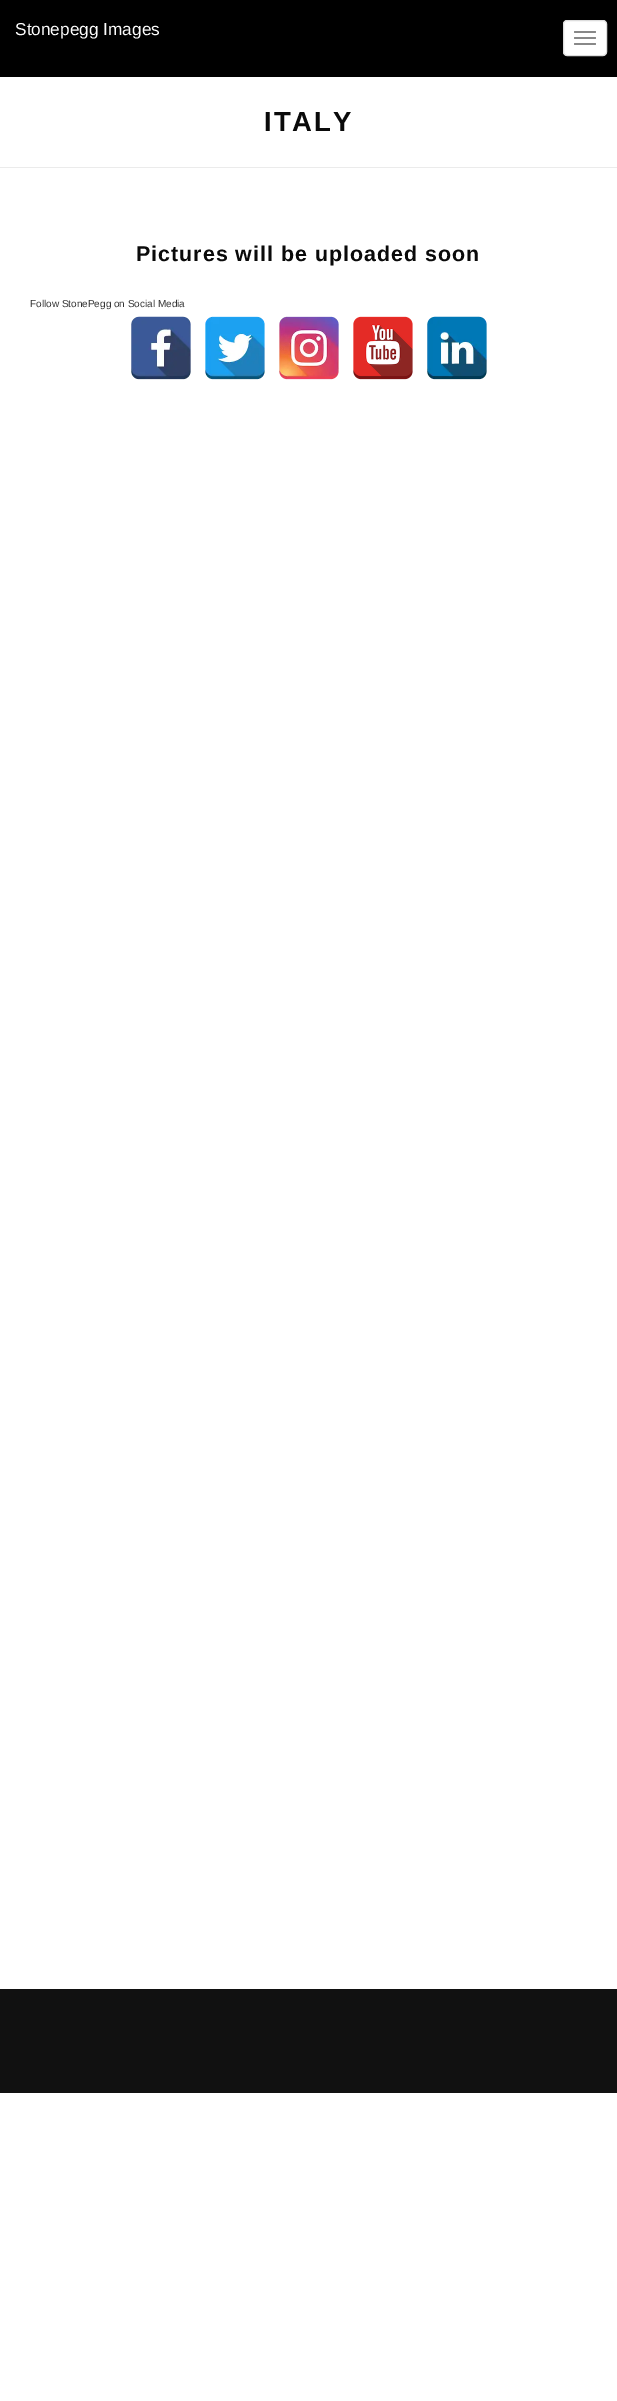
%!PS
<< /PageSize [617 2401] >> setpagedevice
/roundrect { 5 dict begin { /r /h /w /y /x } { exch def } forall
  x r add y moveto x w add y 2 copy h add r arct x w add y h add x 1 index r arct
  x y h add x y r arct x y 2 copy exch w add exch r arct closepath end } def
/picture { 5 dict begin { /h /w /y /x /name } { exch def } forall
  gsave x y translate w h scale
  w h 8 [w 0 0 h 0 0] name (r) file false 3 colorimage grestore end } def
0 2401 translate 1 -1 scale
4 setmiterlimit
1 setgray
0 0 617 2401 rectfill
0 setgray
0 0 617 77 rectfill
/LiberationSans-Regular [17.25 0 0 -17.25 0 0] selectfont
0.988 setgray
15 35 moveto (Stonepegg Images) show
1 setgray
563.5 20.5 43 35 3.5 roundrect gsave fill grestore
0.867 setgray
stroke
0.533 setgray
574 31 22 2 1 roundrect fill
574 37 22 2 1 roundrect fill
574 43 22 2 1 roundrect fill
0.922 setgray
0 167 617 1 rectfill
/LiberationSans-Bold [27.5 0 0 -27.5 0 0] selectfont
0.039 setgray
264 131 moveto 2 0 (ITALY) ashow
/LiberationSans-Bold [21.4 0 0 -21.4 0 0] selectfont
136 261 moveto 1 0 (Pictures will be uploaded soon) ashow
/LiberationSans-Regular [10 0 0 -10 0 0] selectfont
0.2 setgray
30 307 moveto (Follow StonePegg on Social Media) show
(img1.rgb) 131 316 60 64 picture
(img2.rgb) 205 316 60 64 picture
(img3.rgb) 279 316 60 64 picture
(img4.rgb) 353 316 60 64 picture
(img5.rgb) 427 316 60 64 picture
0.067 setgray
0 1989 617 104 rectfill
showpage
